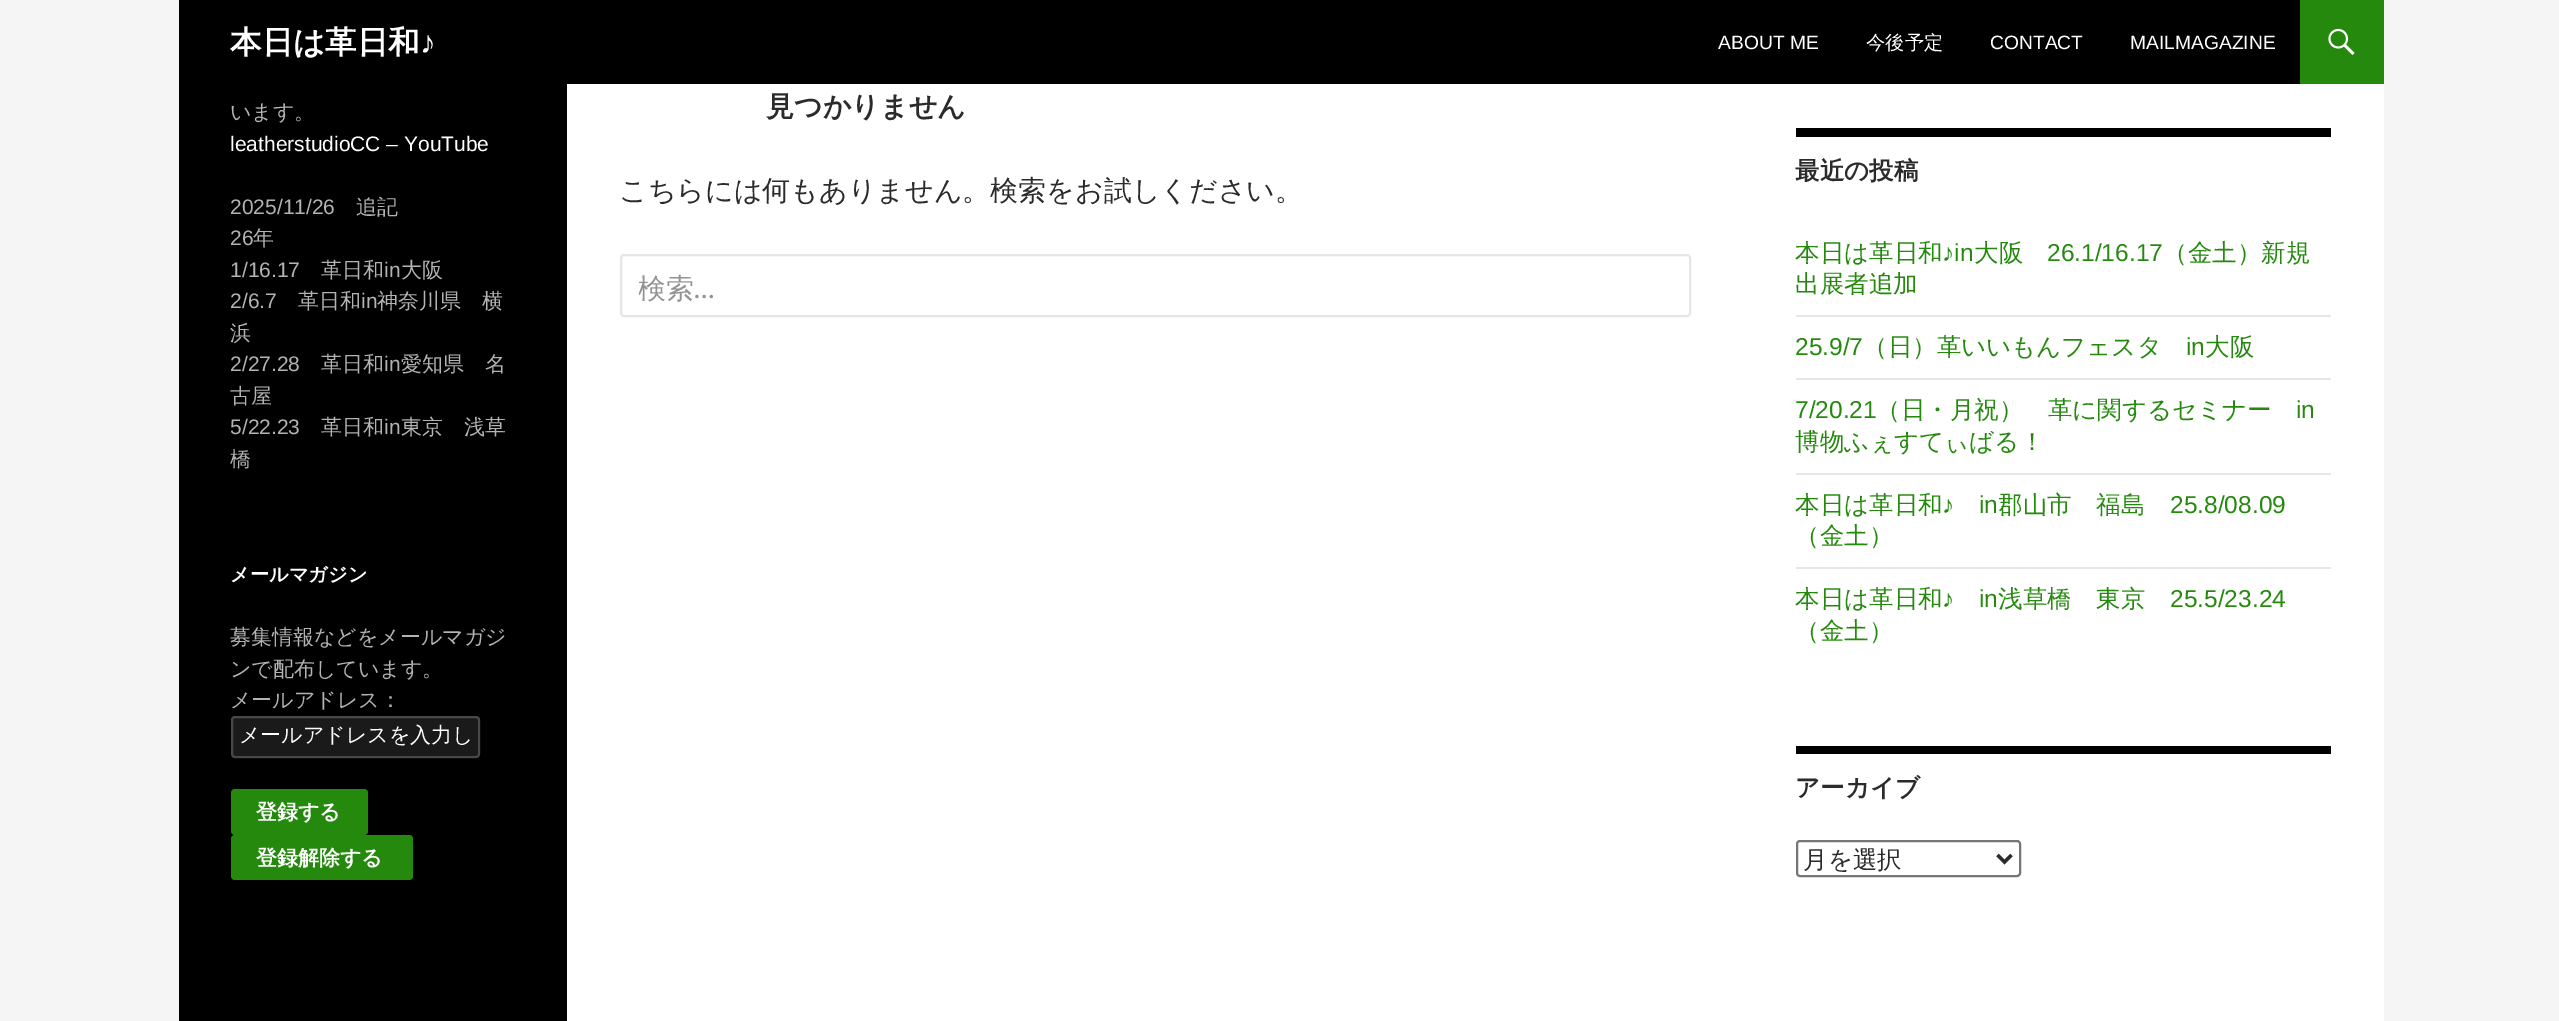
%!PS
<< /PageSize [2559 1021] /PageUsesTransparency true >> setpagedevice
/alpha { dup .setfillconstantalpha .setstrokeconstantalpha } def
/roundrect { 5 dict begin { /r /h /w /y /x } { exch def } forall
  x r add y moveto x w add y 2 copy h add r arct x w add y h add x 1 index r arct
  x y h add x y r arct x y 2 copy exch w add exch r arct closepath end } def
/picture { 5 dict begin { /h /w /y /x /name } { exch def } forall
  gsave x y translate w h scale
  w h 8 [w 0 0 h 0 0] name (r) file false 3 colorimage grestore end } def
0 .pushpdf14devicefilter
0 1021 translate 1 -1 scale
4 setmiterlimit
0.961 setgray
0 0 2559 1021 rectfill
1 setgray
567 84 1817 937 rectfill
0 setgray
179 0 2121 84 rectfill
/WenQuanYiZenHei-Bold [31.5 0 0 -31.5 0 0] selectfont
1 setgray
230 53 moveto (本日は革日和) show
/LiberationSans-Bold [31.5 0 0 -31.5 0 0] selectfont
420 53 moveto (♪) show
/LiberationSans-Regular [19.25 0 0 -19.25 0 0] selectfont
1718 49 moveto (ABOUT ME) show
/WenQuanYiZenHei-Medium [19.25 0 0 -19.25 0 0] selectfont
1866 49 moveto (今後予定) show
/LiberationSans-Regular [19.25 0 0 -19.25 0 0] selectfont
1990 49 moveto (CONTACT) show
2130 49 moveto (MAILMAGAZINE) show
0.141 0.537 0.051 setrgbcolor
2300 0 84 84 rectfill
(img1.rgb) 2328 28 27 27 picture
0 setgray
179 84 388 937 rectfill
/WenQuanYiZenHei-Medium [21 0 0 -21 0 0] selectfont
0.702 setgray
230 119 moveto (います。) show
/LiberationSans-Regular [21 0 0 -21 0 0] selectfont
1 setgray
230 151 moveto (leatherstudioCC – YouTube) show
0.702 setgray
230 214 moveto (2025/11/26) show
/WenQuanYiZenHei-Medium [21 0 0 -21 0 0] selectfont
356 214 moveto (追記) show
/LiberationSans-Regular [21 0 0 -21 0 0] selectfont
230 245 moveto (26) show
/WenQuanYiZenHei-Medium [21 0 0 -21 0 0] selectfont
253 245 moveto (年) show
/LiberationSans-Regular [21 0 0 -21 0 0] selectfont
230 277 moveto (1/16.17) show
/WenQuanYiZenHei-Medium [21 0 0 -21 0 0] selectfont
321 277 moveto (革日和) show
/LiberationSans-Regular [21 0 0 -21 0 0] selectfont
384 277 moveto (in) show
/WenQuanYiZenHei-Medium [21 0 0 -21 0 0] selectfont
401 277 moveto (大阪) show
/LiberationSans-Regular [21 0 0 -21 0 0] selectfont
230 308 moveto (2/6.7) show
/WenQuanYiZenHei-Medium [21 0 0 -21 0 0] selectfont
298 308 moveto (革日和) show
/LiberationSans-Regular [21 0 0 -21 0 0] selectfont
361 308 moveto (in) show
/WenQuanYiZenHei-Medium [21 0 0 -21 0 0] selectfont
377 308 moveto (神奈川県　横) show
230 340 moveto (浜) show
/LiberationSans-Regular [21 0 0 -21 0 0] selectfont
230 371 moveto (2/27.28) show
/WenQuanYiZenHei-Medium [21 0 0 -21 0 0] selectfont
321 371 moveto (革日和) show
/LiberationSans-Regular [21 0 0 -21 0 0] selectfont
384 371 moveto (in) show
/WenQuanYiZenHei-Medium [21 0 0 -21 0 0] selectfont
401 371 moveto (愛知県　名) show
230 403 moveto (古屋) show
/LiberationSans-Regular [21 0 0 -21 0 0] selectfont
230 434 moveto (5/22.23) show
/WenQuanYiZenHei-Medium [21 0 0 -21 0 0] selectfont
321 434 moveto (革日和) show
/LiberationSans-Regular [21 0 0 -21 0 0] selectfont
384 434 moveto (in) show
/WenQuanYiZenHei-Medium [21 0 0 -21 0 0] selectfont
401 434 moveto (東京　浅草) show
230 466 moveto (橋) show
/WenQuanYiZenHei-Bold [19.25 0 0 -19.25 0 0] selectfont
1 setgray
230 581 moveto (メールマガジン) show
/WenQuanYiZenHei-Medium [21 0 0 -21 0 0] selectfont
0.702 setgray
230 644 moveto (募集情報などをメールマガジ) show
230 676 moveto (ンで配布しています。) show
230 707 moveto (メールアドレス：) show
0.102 setgray
231 716 249 42 4 roundrect fill
0.2 alpha
1 setgray
2 setlinewidth
232 717 247 40 3 roundrect stroke
1 alpha
239 742 moveto (メールアドレスを入力し) show
0.141 0.537 0.051 setrgbcolor
231 789 137 46 4 roundrect fill
/WenQuanYiZenHei-Bold [21 0 0 -21 0 0] selectfont
1 setgray
256 819 moveto (登録する) show
0.141 0.537 0.051 setrgbcolor
231 835 182 45 4 roundrect fill
1 setgray
256 865 moveto (登録解除する) show
/WenQuanYiZenHei-Bold [28 0 0 -28 0 0] selectfont
0.169 setgray
766 116 moveto (見つかりません) show
/WenQuanYiZenHei-Medium [28 0 0 -28 0 0] selectfont
619 200 moveto (こちらには何もありません。検索をお試しください。) show
0.902 setgray
621 255 1069 61 3 roundrect stroke
gsave
639 270 1006 38 rectclip
0.576 setgray
638 298 moveto (検索) show
grestore
/Lato-Regular [28 0 0 -28 0 0] selectfont
0.576 setgray
694 298 moveto (…) show
0 setgray
1796 128 535 9 rectfill
/WenQuanYiZenHei-Bold [24.5 0 0 -24.5 0 0] selectfont
0.169 setgray
1795 179 moveto (最近の投稿) show
/WenQuanYiZenHei-Medium [24.5 0 0 -24.5 0 0] selectfont
0.141 0.537 0.051 setrgbcolor
1795 261 moveto (本日は革日和) show
/LiberationSans-Regular [24.5 0 0 -24.5 0 0] selectfont
1942 261 moveto (♪in) show
/WenQuanYiZenHei-Medium [24.5 0 0 -24.5 0 0] selectfont
1974 261 moveto (大阪) show
/LiberationSans-Regular [24.5 0 0 -24.5 0 0] selectfont
2047 261 moveto (26.1/16.17) show
/WenQuanYiZenHei-Medium [24.5 0 0 -24.5 0 0] selectfont
2163 261 moveto (（金土）新規) show
1795 292 moveto (出展者追加) show
0.902 setgray
1796 315 535 2 rectfill
/LiberationSans-Regular [24.5 0 0 -24.5 0 0] selectfont
0.141 0.537 0.051 setrgbcolor
1795 355 moveto (25.9/7) show
/WenQuanYiZenHei-Medium [24.5 0 0 -24.5 0 0] selectfont
1863 355 moveto (（日）革いいもんフェスタ) show
/LiberationSans-Regular [24.5 0 0 -24.5 0 0] selectfont
2186 355 moveto (in) show
/WenQuanYiZenHei-Medium [24.5 0 0 -24.5 0 0] selectfont
2205 355 moveto (大阪) show
0.902 setgray
1796 378 535 2 rectfill
/LiberationSans-Regular [24.5 0 0 -24.5 0 0] selectfont
0.141 0.537 0.051 setrgbcolor
1795 418 moveto (7/20.21) show
/WenQuanYiZenHei-Medium [24.5 0 0 -24.5 0 0] selectfont
1876 418 moveto (（日・月祝）　革に関するセミナー) show
/LiberationSans-Regular [24.5 0 0 -24.5 0 0] selectfont
2296 418 moveto (in) show
/WenQuanYiZenHei-Medium [24.5 0 0 -24.5 0 0] selectfont
1795 450 moveto (博物ふぇすてぃばる！) show
0.902 setgray
1796 473 535 2 rectfill
0.141 0.537 0.051 setrgbcolor
1795 513 moveto (本日は革日和) show
/LiberationSans-Regular [24.5 0 0 -24.5 0 0] selectfont
1942 513 moveto (♪) show
1979 513 moveto (in) show
/WenQuanYiZenHei-Medium [24.5 0 0 -24.5 0 0] selectfont
1998 513 moveto (郡山市　福島) show
/LiberationSans-Regular [24.5 0 0 -24.5 0 0] selectfont
2170 513 moveto (25.8/08.09) show
/WenQuanYiZenHei-Medium [24.5 0 0 -24.5 0 0] selectfont
1795 544 moveto (（金土）) show
0.902 setgray
1796 567 535 2 rectfill
0.141 0.537 0.051 setrgbcolor
1795 607 moveto (本日は革日和) show
/LiberationSans-Regular [24.5 0 0 -24.5 0 0] selectfont
1942 607 moveto (♪) show
1979 607 moveto (in) show
/WenQuanYiZenHei-Medium [24.5 0 0 -24.5 0 0] selectfont
1998 607 moveto (浅草橋　東京) show
/LiberationSans-Regular [24.5 0 0 -24.5 0 0] selectfont
2170 607 moveto (25.5/23.24) show
/WenQuanYiZenHei-Medium [24.5 0 0 -24.5 0 0] selectfont
1795 639 moveto (（金土）) show
0 setgray
1796 746 535 8 rectfill
/WenQuanYiZenHei-Bold [24.5 0 0 -24.5 0 0] selectfont
0.169 setgray
1795 796 moveto (アーカイブ) show
0.463 setgray
1797 841 223 35 3 roundrect stroke
0.169 setgray
3.5 setlinewidth
newpath 1997.5 855 moveto 2004.5 862 lineto 2011.5 855 lineto stroke
/WenQuanYiZenHei-Medium [24.5 0 0 -24.5 0 0] selectfont
1803 868 moveto (月を選択) show
.poppdf14devicefilter showpage
